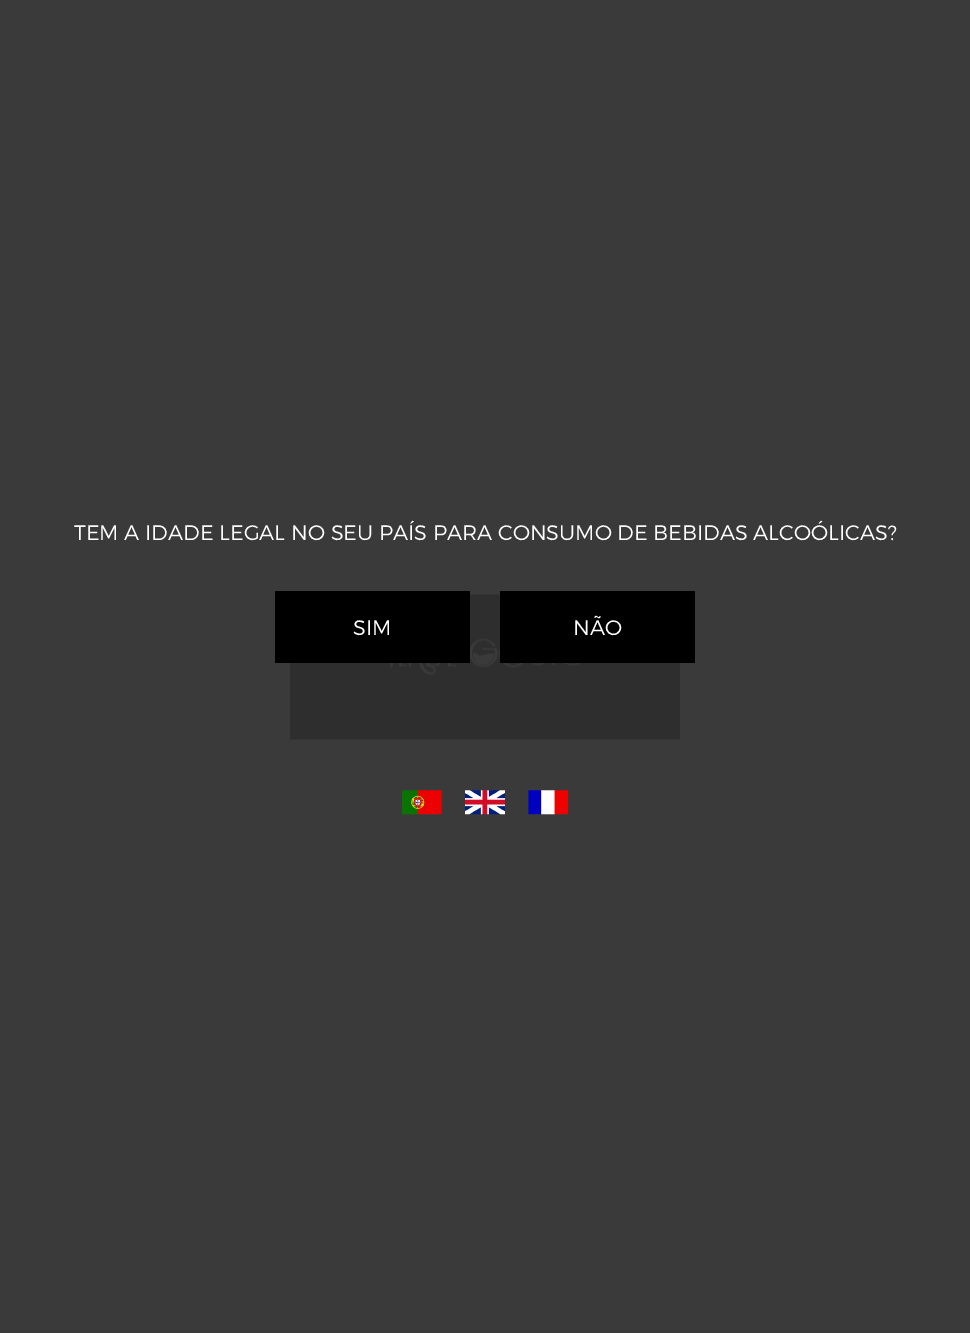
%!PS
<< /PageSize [970 1333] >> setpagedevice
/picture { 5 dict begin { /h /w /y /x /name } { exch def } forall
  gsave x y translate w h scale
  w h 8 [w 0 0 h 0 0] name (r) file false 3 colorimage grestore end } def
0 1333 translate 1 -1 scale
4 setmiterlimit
0.227 setgray
0 0 970 1333 rectfill
/Montserrat-Light [21 0 0 -21 0 0] selectfont
1 setgray
74 540 moveto (TEM A IDADE LEGAL NO SEU PAÍS PARA CONSUMO DE BEBIDAS ALCOÓLICAS?) show
(img2.rgb) 290 594 390 146 picture
0 setgray
275 591 195 72 rectfill
1 setgray
353 635 moveto (SIM) show
0 setgray
500 591 195 72 rectfill
1 setgray
573 635 moveto (NÃO) show
(img1.rgb) 402 790 167 25 picture
showpage
